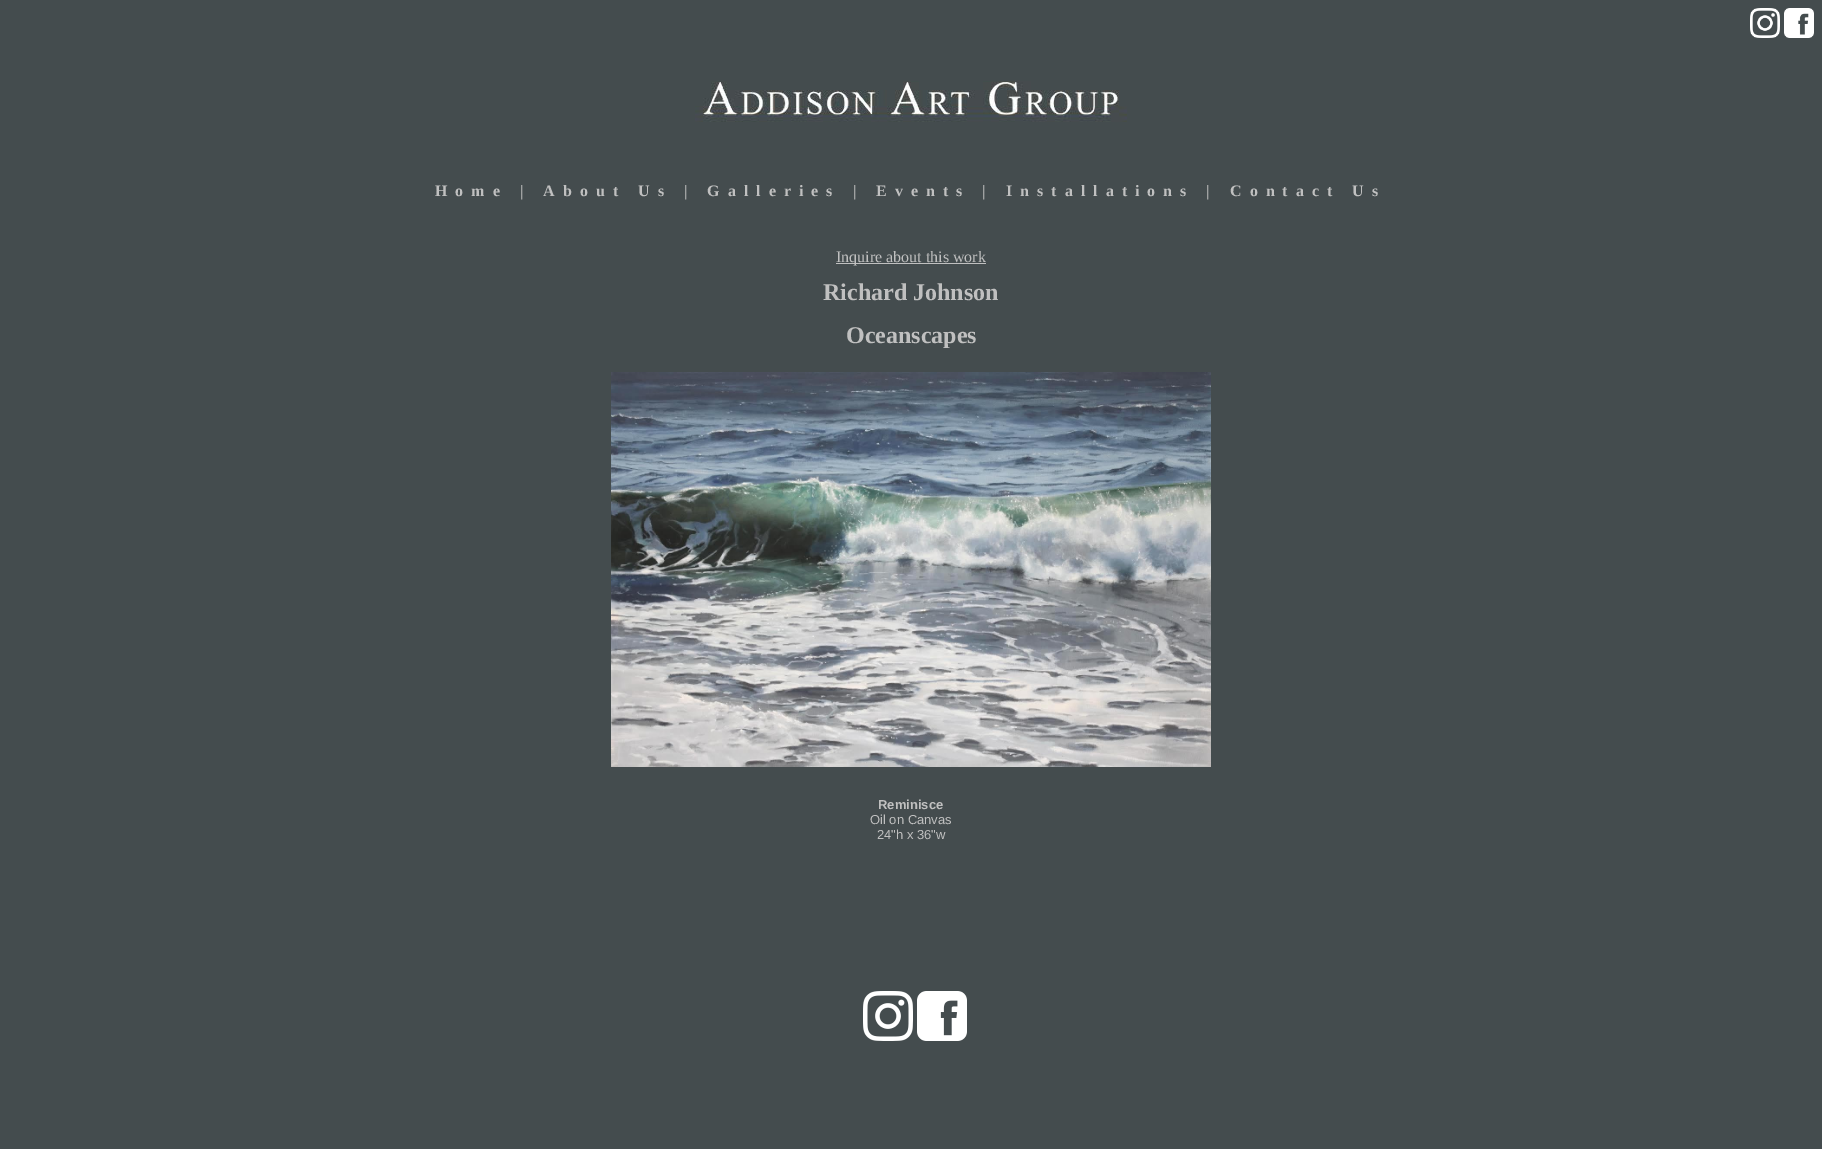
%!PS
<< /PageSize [1822 1149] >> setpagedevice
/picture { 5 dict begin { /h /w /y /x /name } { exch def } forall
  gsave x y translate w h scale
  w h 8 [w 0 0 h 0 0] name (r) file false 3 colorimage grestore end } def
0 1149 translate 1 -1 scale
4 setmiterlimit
0.267 0.298 0.306 setrgbcolor
0 0 1822 1149 rectfill
(img1.rgb) 1750 8 30 30 picture
(img2.rgb) 1784 8 30 30 picture
(img3.rgb) 695 81 432 41 picture
/LiberationSerif-Bold [16 0 0 -16 0 0] selectfont
0.753 setgray
435 196 moveto 8 0 (Home | About Us | Galleries | Events | Installations | Contact Us) ashow
836 263 150 1 rectfill
/LiberationSerif-Regular [16 0 0 -16 0 0] selectfont
836 262 moveto (Inquire about this work) show
/LiberationSerif-Bold [24 0 0 -24 0 0] selectfont
823 300 moveto (Richard Johnson) show
846 343 moveto (Oceanscapes) show
(img4.rgb) 611 372 600 395 picture
/LiberationSans-Bold [13 0 0 -13 0 0] selectfont
878 809 moveto (Reminisce) show
/LiberationSans-Regular [13 0 0 -13 0 0] selectfont
870 824 moveto (Oil on Canvas) show
877 839 moveto (24"h x 36"w) show
(img5.rgb) 863 991 50 50 picture
(img6.rgb) 917 991 50 50 picture
showpage
